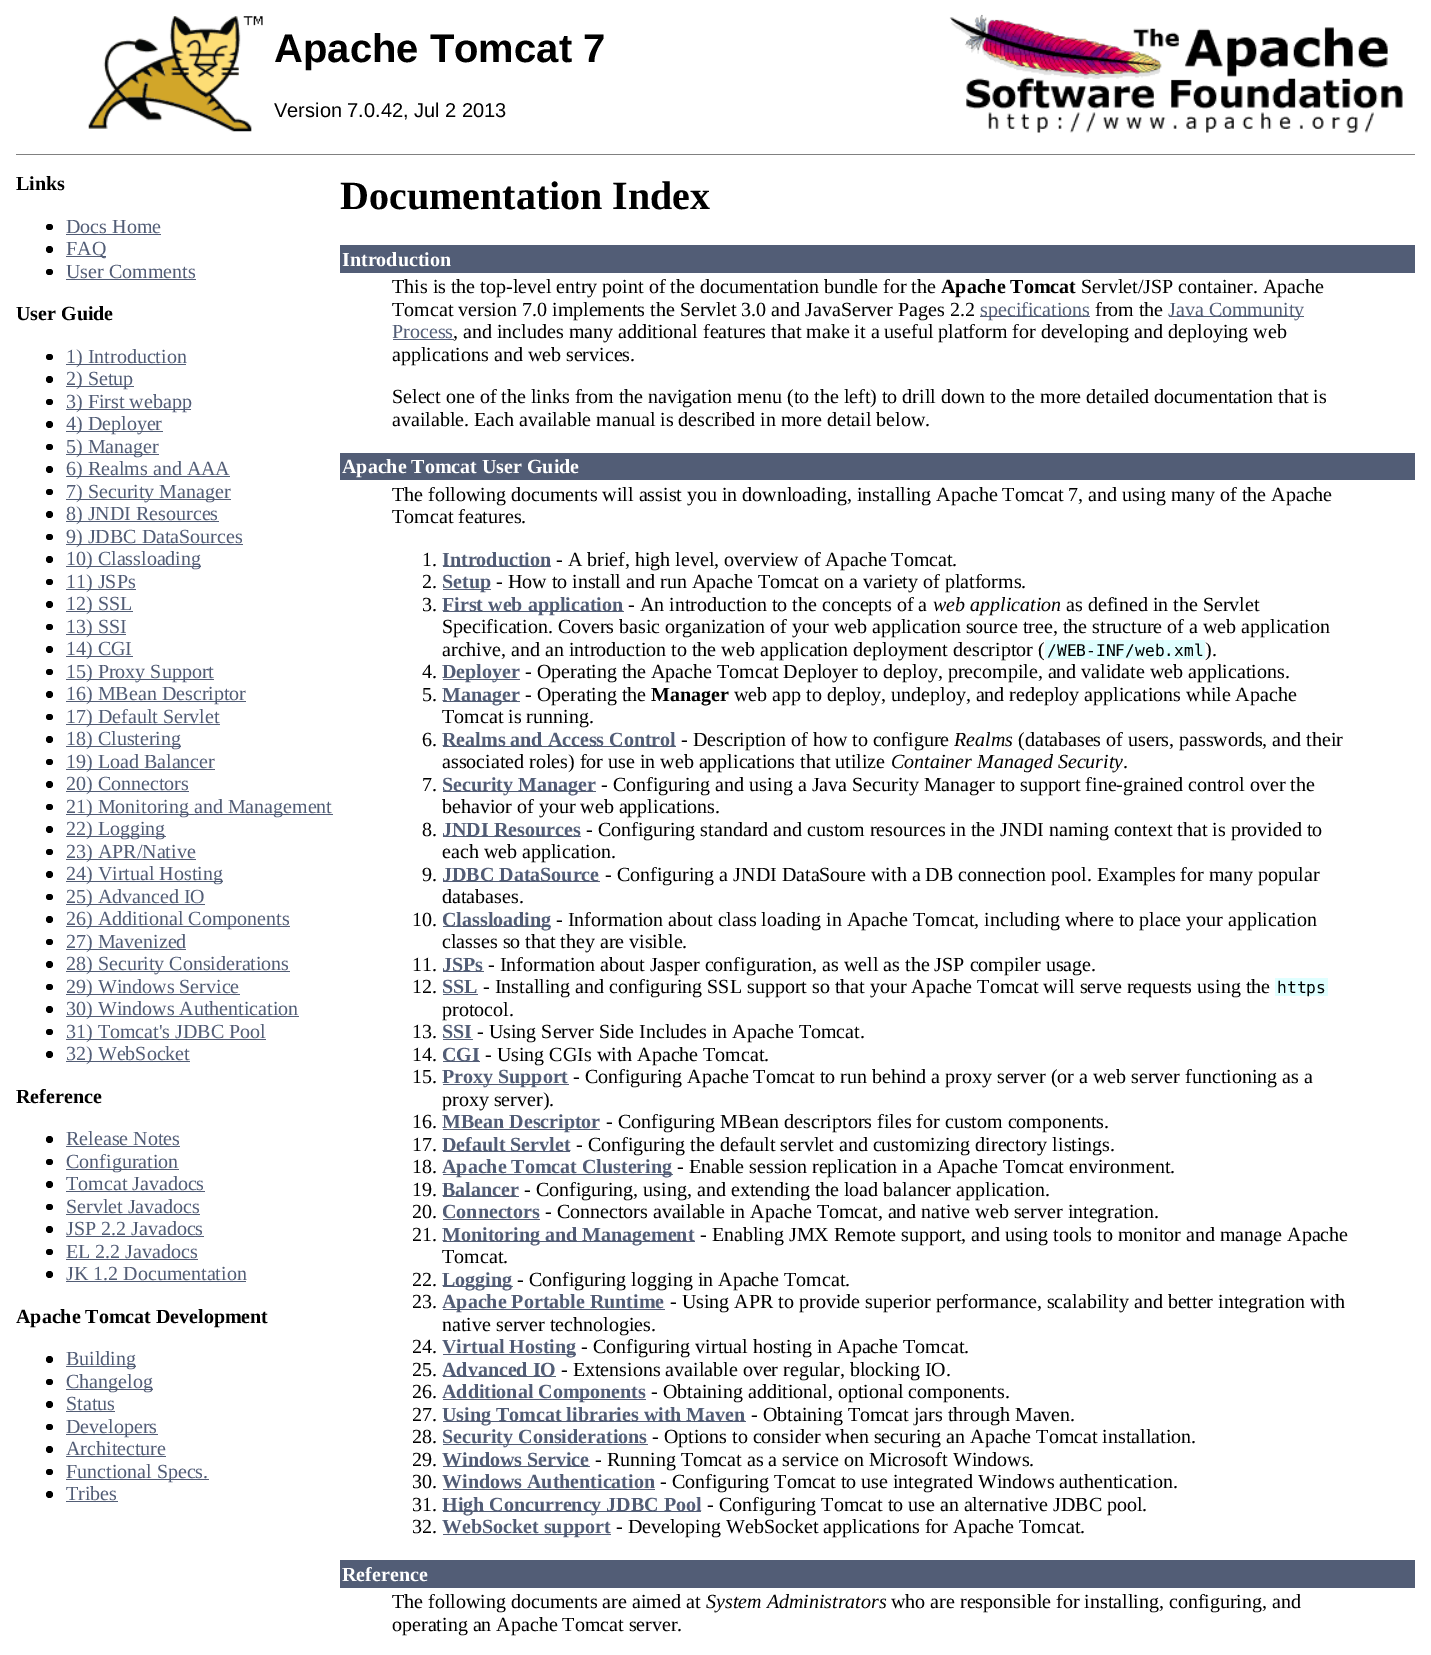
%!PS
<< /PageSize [1431 1655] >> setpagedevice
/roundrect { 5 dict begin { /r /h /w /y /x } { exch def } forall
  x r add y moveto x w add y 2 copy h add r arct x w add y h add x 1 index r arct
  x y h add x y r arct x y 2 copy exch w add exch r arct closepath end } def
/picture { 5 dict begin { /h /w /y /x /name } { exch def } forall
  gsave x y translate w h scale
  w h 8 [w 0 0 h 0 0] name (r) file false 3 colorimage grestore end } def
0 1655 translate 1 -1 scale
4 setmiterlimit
1 setgray
0 0 1431 1655 rectfill
(img1.rgb) 88 16 175 116 picture
/LiberationSans-Bold [40 0 0 -40 0 0] selectfont
0 setgray
274 62 moveto (Apache Tomcat 7) show
/LiberationSans-Regular [20 0 0 -20 0 0] selectfont
274 117 moveto (Version 7.0.42, Jul 2 2013) show
(img2.rgb) 949 14 454 119 picture
0.502 setgray
16 154 1399 1 rectfill
/LiberationSerif-Bold [20 0 0 -20 0 0] selectfont
0 setgray
16 190 moveto (Links) show
46 224 7 6 3 roundrect fill
/LiberationSerif-Regular [20 0 0 -20 0 0] selectfont
0.322 0.365 0.463 setrgbcolor
66 233 moveto (Docs Home) show
66 234 95 1 rectfill
0 setgray
newpath 49.5 249.5 3.5 0 360 arc closepath fill
0.322 0.365 0.463 setrgbcolor
66 256 40 1 rectfill
66 255 moveto (FAQ) show
0 setgray
46 269 7 6 3 roundrect fill
0.322 0.365 0.463 setrgbcolor
66 278 moveto (User Comments) show
66 279 130 1 rectfill
/LiberationSerif-Bold [20 0 0 -20 0 0] selectfont
0 setgray
16 320 moveto (User Guide) show
46 354 7 6 3 roundrect fill
0.322 0.365 0.463 setrgbcolor
66 364 120 1 rectfill
/LiberationSerif-Regular [20 0 0 -20 0 0] selectfont
66 363 moveto (1\) Introduction) show
0 setgray
newpath 49.5 379.5 3.5 0 360 arc closepath fill
0.322 0.365 0.463 setrgbcolor
66 386 68 1 rectfill
66 385 moveto (2\) Setup) show
0 setgray
46 399 7 6 3 roundrect fill
0.322 0.365 0.463 setrgbcolor
66 409 125 1 rectfill
66 408 moveto (3\) First webapp) show
0 setgray
newpath 49.5 424.5 3.5 0 360 arc closepath fill
0.322 0.365 0.463 setrgbcolor
66 431 97 1 rectfill
66 430 moveto (4\) Deployer) show
0 setgray
46 444 7 6 3 roundrect fill
0.322 0.365 0.463 setrgbcolor
66 454 93 1 rectfill
66 453 moveto (5\) Manager) show
0 setgray
newpath 49.5 469.5 3.5 0 360 arc closepath fill
0.322 0.365 0.463 setrgbcolor
66 476 164 1 rectfill
66 475 moveto (6\) Realms and AAA) show
0 setgray
46 489 7 6 3 roundrect fill
0.322 0.365 0.463 setrgbcolor
66 499 165 1 rectfill
66 498 moveto (7\) Security Manager) show
0 setgray
newpath 49.5 514.5 3.5 0 360 arc closepath fill
0.322 0.365 0.463 setrgbcolor
66 521 153 1 rectfill
66 520 moveto (8\) JNDI Resources) show
0 setgray
46 534 7 6 3 roundrect fill
0.322 0.365 0.463 setrgbcolor
66 544 177 1 rectfill
66 543 moveto (9\) JDBC DataSources) show
0 setgray
newpath 49.5 559.5 3.5 0 360 arc closepath fill
0.322 0.365 0.463 setrgbcolor
66 566 135 1 rectfill
66 565 moveto (10\) Classloading) show
0 setgray
46 579 7 6 3 roundrect fill
0.322 0.365 0.463 setrgbcolor
66 589 70 1 rectfill
66 588 moveto (11\) JSPs) show
0 setgray
newpath 49.5 604.5 3.5 0 360 arc closepath fill
0.322 0.365 0.463 setrgbcolor
66 611 67 1 rectfill
66 610 moveto (12\) SSL) show
0 setgray
46 624 7 6 3 roundrect fill
0.322 0.365 0.463 setrgbcolor
66 634 60 1 rectfill
66 633 moveto (13\) SSI) show
0 setgray
newpath 49.5 649.5 3.5 0 360 arc closepath fill
0.322 0.365 0.463 setrgbcolor
66 656 67 1 rectfill
66 655 moveto (14\) CGI) show
0 setgray
46 669 7 6 3 roundrect fill
0.322 0.365 0.463 setrgbcolor
66 679 148 1 rectfill
66 678 moveto (15\) Proxy Support) show
0 setgray
newpath 49.5 694.5 3.5 0 360 arc closepath fill
0.322 0.365 0.463 setrgbcolor
66 701 180 1 rectfill
66 700 moveto (16\) MBean Descriptor) show
0 setgray
46 714 7 6 3 roundrect fill
0.322 0.365 0.463 setrgbcolor
66 724 154 1 rectfill
66 723 moveto (17\) Default Servlet) show
0 setgray
newpath 49.5 739.5 3.5 0 360 arc closepath fill
0.322 0.365 0.463 setrgbcolor
66 746 115 1 rectfill
66 745 moveto (18\) Clustering) show
0 setgray
46 759 7 6 3 roundrect fill
0.322 0.365 0.463 setrgbcolor
66 769 149 1 rectfill
66 768 moveto (19\) Load Balancer) show
0 setgray
newpath 49.5 784.5 3.5 0 360 arc closepath fill
0.322 0.365 0.463 setrgbcolor
66 791 123 1 rectfill
66 790 moveto (20\) Connectors) show
0 setgray
46 804 7 6 3 roundrect fill
0.322 0.365 0.463 setrgbcolor
66 814 267 1 rectfill
66 813 moveto (21\) Monitoring and Management) show
0 setgray
newpath 49.5 829.5 3.5 0 360 arc closepath fill
0.322 0.365 0.463 setrgbcolor
66 836 100 1 rectfill
66 835 moveto (22\) Logging) show
0 setgray
46 849 7 6 3 roundrect fill
0.322 0.365 0.463 setrgbcolor
66 859 130 1 rectfill
66 858 moveto (23\) APR/Native) show
0 setgray
newpath 49.5 874.5 3.5 0 360 arc closepath fill
0.322 0.365 0.463 setrgbcolor
66 881 157 1 rectfill
66 880 moveto (24\) Virtual Hosting) show
0 setgray
46 894 7 6 3 roundrect fill
0.322 0.365 0.463 setrgbcolor
66 904 139 1 rectfill
66 903 moveto (25\) Advanced IO) show
0 setgray
newpath 49.5 919.5 3.5 0 360 arc closepath fill
0.322 0.365 0.463 setrgbcolor
66 926 224 1 rectfill
66 925 moveto (26\) Additional Components) show
0 setgray
46 939 7 6 3 roundrect fill
0.322 0.365 0.463 setrgbcolor
66 949 120 1 rectfill
66 948 moveto (27\) Mavenized) show
0 setgray
newpath 49.5 964.5 3.5 0 360 arc closepath fill
0.322 0.365 0.463 setrgbcolor
66 971 224 1 rectfill
66 970 moveto (28\) Security Considerations) show
0 setgray
46 984 7 6 3 roundrect fill
0.322 0.365 0.463 setrgbcolor
66 994 174 1 rectfill
66 993 moveto (29\) Windows Service) show
0 setgray
newpath 49.5 1009.5 3.5 0 360 arc closepath fill
0.322 0.365 0.463 setrgbcolor
66 1016 233 1 rectfill
66 1015 moveto (30\) Windows Authentication) show
0 setgray
46 1029 7 6 3 roundrect fill
0.322 0.365 0.463 setrgbcolor
66 1039 200 1 rectfill
66 1038 moveto (31\) Tomcat's JDBC Pool) show
0 setgray
newpath 49.5 1054.5 3.5 0 360 arc closepath fill
0.322 0.365 0.463 setrgbcolor
66 1061 124 1 rectfill
66 1060 moveto (32\) WebSocket) show
/LiberationSerif-Bold [20 0 0 -20 0 0] selectfont
0 setgray
16 1103 moveto (Reference) show
newpath 49.5 1139.5 3.5 0 360 arc closepath fill
/LiberationSerif-Regular [20 0 0 -20 0 0] selectfont
0.322 0.365 0.463 setrgbcolor
66 1145 moveto (Release Notes) show
66 1146 114 1 rectfill
0 setgray
46 1159 7 6 3 roundrect fill
0.322 0.365 0.463 setrgbcolor
66 1169 113 1 rectfill
66 1168 moveto (Configuration) show
0 setgray
newpath 49.5 1184.5 3.5 0 360 arc closepath fill
0.322 0.365 0.463 setrgbcolor
66 1190 moveto (Tomcat Javadocs) show
66 1191 139 1 rectfill
0 setgray
46 1204 7 6 3 roundrect fill
0.322 0.365 0.463 setrgbcolor
66 1213 moveto (Servlet Javadocs) show
66 1214 134 1 rectfill
0 setgray
newpath 49.5 1229.5 3.5 0 360 arc closepath fill
0.322 0.365 0.463 setrgbcolor
66 1235 moveto (JSP 2.2 Javadocs) show
66 1236 138 1 rectfill
0 setgray
46 1249 7 6 3 roundrect fill
0.322 0.365 0.463 setrgbcolor
66 1258 moveto (EL 2.2 Javadocs) show
66 1259 132 1 rectfill
0 setgray
newpath 49.5 1274.5 3.5 0 360 arc closepath fill
0.322 0.365 0.463 setrgbcolor
66 1280 moveto (JK 1.2 Documentation) show
66 1281 180 1 rectfill
/LiberationSerif-Bold [20 0 0 -20 0 0] selectfont
0 setgray
16 1323 moveto (Apache Tomcat Development) show
newpath 49.5 1359.5 3.5 0 360 arc closepath fill
0.322 0.365 0.463 setrgbcolor
66 1366 70 1 rectfill
/LiberationSerif-Regular [20 0 0 -20 0 0] selectfont
66 1365 moveto (Building) show
0 setgray
46 1379 7 6 3 roundrect fill
0.322 0.365 0.463 setrgbcolor
66 1389 87 1 rectfill
66 1388 moveto (Changelog) show
0 setgray
newpath 49.5 1404.5 3.5 0 360 arc closepath fill
0.322 0.365 0.463 setrgbcolor
66 1410 moveto (Status) show
66 1411 49 1 rectfill
0 setgray
46 1424 7 6 3 roundrect fill
0.322 0.365 0.463 setrgbcolor
66 1434 92 1 rectfill
66 1433 moveto (Developers) show
0 setgray
newpath 49.5 1449.5 3.5 0 360 arc closepath fill
0.322 0.365 0.463 setrgbcolor
66 1455 moveto (Architecture) show
66 1456 100 1 rectfill
0 setgray
46 1469 7 6 3 roundrect fill
0.322 0.365 0.463 setrgbcolor
66 1479 143 1 rectfill
66 1478 moveto (Functional Specs.) show
0 setgray
newpath 49.5 1494.5 3.5 0 360 arc closepath fill
0.322 0.365 0.463 setrgbcolor
66 1500 moveto (Tribes) show
66 1501 52 1 rectfill
/LiberationSerif-Bold [40 0 0 -40 0 0] selectfont
0 setgray
340 209 moveto (Documentation Index) show
0.322 0.365 0.463 setrgbcolor
340 245 1075 28 rectfill
/LiberationSerif-Bold [20 0 0 -20 0 0] selectfont
1 setgray
342 266 moveto (Introduction) show
/LiberationSerif-Regular [20 0 0 -20 0 0] selectfont
0 setgray
392 293 moveto (This is the top-level entry point of the documentation bundle for the) show
/LiberationSerif-Bold [20 0 0 -20 0 0] selectfont
941 293 moveto (Apache Tomcat) show
/LiberationSerif-Regular [20 0 0 -20 0 0] selectfont
1081 293 moveto (Servlet/JSP container. Apache) show
392 316 moveto (Tomcat version 7.0 implements the Servlet 3.0 and JavaServer Pages 2.2) show
0.322 0.365 0.463 setrgbcolor
980 316 110 1 rectfill
980 316 moveto (specifications) show
0 setgray
1095 316 moveto (from the) show
0.322 0.365 0.463 setrgbcolor
1169 316 135 1 rectfill
1168 316 moveto (Java Community) show
392 338 moveto (Process) show
393 339 61 1 rectfill
0 setgray
453 338 moveto (, and includes many additional features that make it a useful platform for developing and deploying web) show
392 361 moveto (applications and web services.) show
392 403 moveto (Select one of the links from the navigation menu \(to the left\) to drill down to the more detailed documentation that is) show
392 426 moveto (available. Each available manual is described in more detail below.) show
0.322 0.365 0.463 setrgbcolor
340 453 1075 27 rectfill
/LiberationSerif-Bold [20 0 0 -20 0 0] selectfont
1 setgray
342 473 moveto (Apache Tomcat User Guide) show
/LiberationSerif-Regular [20 0 0 -20 0 0] selectfont
0 setgray
392 501 moveto (The following documents will assist you in downloading, installing Apache Tomcat 7, and using many of the Apache) show
392 523 moveto (Tomcat features.) show
422 566 moveto (1.) show
0.322 0.365 0.463 setrgbcolor
443 566 108 1 rectfill
/LiberationSerif-Bold [20 0 0 -20 0 0] selectfont
442 566 moveto (Introduction) show
/LiberationSerif-Regular [20 0 0 -20 0 0] selectfont
0 setgray
556 566 moveto (- A brief, high level, overview of Apache Tomcat.) show
422 588 moveto (2.) show
0.322 0.365 0.463 setrgbcolor
443 589 48 1 rectfill
/LiberationSerif-Bold [20 0 0 -20 0 0] selectfont
442 588 moveto (Setup) show
/LiberationSerif-Regular [20 0 0 -20 0 0] selectfont
0 setgray
496 588 moveto (- How to install and run Apache Tomcat on a variety of platforms.) show
422 611 moveto (3.) show
0.322 0.365 0.463 setrgbcolor
443 611 181 1 rectfill
/LiberationSerif-Bold [20 0 0 -20 0 0] selectfont
442 611 moveto (First web application) show
/LiberationSerif-Regular [20 0 0 -20 0 0] selectfont
0 setgray
628 611 moveto (- An introduction to the concepts of a) show
/LiberationSerif-Italic [20 0 0 -20 0 0] selectfont
933 611 moveto (web application) show
/LiberationSerif-Regular [20 0 0 -20 0 0] selectfont
1066 611 moveto (as defined in the Servlet) show
442 633 moveto (Specification. Covers basic organization of your web application source tree, the structure of a web application) show
442 656 moveto (archive, and an introduction to the web application deployment descriptor \() show
0.878 1 1 setrgbcolor
1045 640 160 19 rectfill
/DejaVuSansMono-Regular [16.25 0 0 -16.25 0 0] selectfont
0 setgray
1047 656 moveto (/WEB-INF/web.xml) show
/LiberationSerif-Regular [20 0 0 -20 0 0] selectfont
1205 656 moveto (\).) show
422 678 moveto (4.) show
0.322 0.365 0.463 setrgbcolor
443 679 77 1 rectfill
/LiberationSerif-Bold [20 0 0 -20 0 0] selectfont
442 678 moveto (Deployer) show
/LiberationSerif-Regular [20 0 0 -20 0 0] selectfont
0 setgray
525 678 moveto (- Operating the Apache Tomcat Deployer to deploy, precompile, and validate web applications.) show
422 701 moveto (5.) show
0.322 0.365 0.463 setrgbcolor
443 701 77 1 rectfill
/LiberationSerif-Bold [20 0 0 -20 0 0] selectfont
442 701 moveto (Manager) show
/LiberationSerif-Regular [20 0 0 -20 0 0] selectfont
0 setgray
525 701 moveto (- Operating the) show
/LiberationSerif-Bold [20 0 0 -20 0 0] selectfont
651 701 moveto (Manager) show
/LiberationSerif-Regular [20 0 0 -20 0 0] selectfont
734 701 moveto (web app to deploy, undeploy, and redeploy applications while Apache) show
442 723 moveto (Tomcat is running.) show
422 746 moveto (6.) show
0.322 0.365 0.463 setrgbcolor
443 746 233 1 rectfill
/LiberationSerif-Bold [20 0 0 -20 0 0] selectfont
442 746 moveto (Realms and Access Control) show
/LiberationSerif-Regular [20 0 0 -20 0 0] selectfont
0 setgray
681 746 moveto (- Description of how to configure) show
/LiberationSerif-Italic [20 0 0 -20 0 0] selectfont
954 746 moveto (Realms) show
/LiberationSerif-Regular [20 0 0 -20 0 0] selectfont
1018 746 moveto (\(databases of users, passwords, and their) show
442 768 moveto (associated roles\) for use in web applications that utilize) show
/LiberationSerif-Italic [20 0 0 -20 0 0] selectfont
891 768 moveto (Container Managed Security) show
/LiberationSerif-Regular [20 0 0 -20 0 0] selectfont
1123 768 moveto (.) show
422 791 moveto (7.) show
0.322 0.365 0.463 setrgbcolor
443 791 153 1 rectfill
/LiberationSerif-Bold [20 0 0 -20 0 0] selectfont
442 791 moveto (Security Manager) show
/LiberationSerif-Regular [20 0 0 -20 0 0] selectfont
0 setgray
601 791 moveto (- Configuring and using a Java Security Manager to support fine-grained control over the) show
442 813 moveto (behavior of your web applications.) show
422 836 moveto (8.) show
0.322 0.365 0.463 setrgbcolor
443 836 138 1 rectfill
/LiberationSerif-Bold [20 0 0 -20 0 0] selectfont
442 836 moveto (JNDI Resources) show
/LiberationSerif-Regular [20 0 0 -20 0 0] selectfont
0 setgray
586 836 moveto (- Configuring standard and custom resources in the JNDI naming context that is provided to) show
442 858 moveto (each web application.) show
422 881 moveto (9.) show
0.322 0.365 0.463 setrgbcolor
443 881 157 1 rectfill
/LiberationSerif-Bold [20 0 0 -20 0 0] selectfont
442 881 moveto (JDBC DataSource) show
/LiberationSerif-Regular [20 0 0 -20 0 0] selectfont
0 setgray
605 881 moveto (- Configuring a JNDI DataSoure with a DB connection pool. Examples for many popular) show
442 903 moveto (databases.) show
412 926 moveto (10.) show
0.322 0.365 0.463 setrgbcolor
443 926 108 1 rectfill
/LiberationSerif-Bold [20 0 0 -20 0 0] selectfont
442 926 moveto (Classloading) show
/LiberationSerif-Regular [20 0 0 -20 0 0] selectfont
0 setgray
556 926 moveto (- Information about class loading in Apache Tomcat, including where to place your application) show
442 948 moveto (classes so that they are visible.) show
412 971 moveto (11.) show
0.322 0.365 0.463 setrgbcolor
443 971 41 1 rectfill
/LiberationSerif-Bold [20 0 0 -20 0 0] selectfont
442 971 moveto (JSPs) show
/LiberationSerif-Regular [20 0 0 -20 0 0] selectfont
0 setgray
488 971 moveto (- Information about Jasper configuration, as well as the JSP compiler usage.) show
412 993 moveto (12.) show
/LiberationSerif-Bold [20 0 0 -20 0 0] selectfont
0.322 0.365 0.463 setrgbcolor
442 993 moveto (SSL) show
443 994 35 1 rectfill
/LiberationSerif-Regular [20 0 0 -20 0 0] selectfont
0 setgray
483 993 moveto (- Installing and configuring SSL support so that your Apache Tomcat will serve requests using the) show
0.878 1 1 setrgbcolor
1275 978 53 18 rectfill
/DejaVuSansMono-Regular [16.25 0 0 -16.25 0 0] selectfont
0 setgray
1277 993 moveto (https) show
/LiberationSerif-Regular [20 0 0 -20 0 0] selectfont
442 1016 moveto (protocol.) show
412 1038 moveto (13.) show
/LiberationSerif-Bold [20 0 0 -20 0 0] selectfont
0.322 0.365 0.463 setrgbcolor
442 1038 moveto (SSI) show
443 1039 30 1 rectfill
/LiberationSerif-Regular [20 0 0 -20 0 0] selectfont
0 setgray
477 1038 moveto (- Using Server Side Includes in Apache Tomcat.) show
412 1061 moveto (14.) show
0.322 0.365 0.463 setrgbcolor
443 1061 37 1 rectfill
/LiberationSerif-Bold [20 0 0 -20 0 0] selectfont
442 1061 moveto (CGI) show
/LiberationSerif-Regular [20 0 0 -20 0 0] selectfont
0 setgray
485 1061 moveto (- Using CGIs with Apache Tomcat.) show
412 1083 moveto (15.) show
0.322 0.365 0.463 setrgbcolor
443 1084 126 1 rectfill
/LiberationSerif-Bold [20 0 0 -20 0 0] selectfont
442 1083 moveto (Proxy Support) show
/LiberationSerif-Regular [20 0 0 -20 0 0] selectfont
0 setgray
573 1083 moveto (- Configuring Apache Tomcat to run behind a proxy server \(or a web server functioning as a) show
442 1106 moveto (proxy server\).) show
412 1128 moveto (16.) show
0.322 0.365 0.463 setrgbcolor
443 1129 157 1 rectfill
/LiberationSerif-Bold [20 0 0 -20 0 0] selectfont
442 1128 moveto (MBean Descriptor) show
/LiberationSerif-Regular [20 0 0 -20 0 0] selectfont
0 setgray
606 1128 moveto (- Configuring MBean descriptors files for custom components.) show
412 1151 moveto (17.) show
0.322 0.365 0.463 setrgbcolor
443 1151 127 1 rectfill
/LiberationSerif-Bold [20 0 0 -20 0 0] selectfont
442 1151 moveto (Default Servlet) show
/LiberationSerif-Regular [20 0 0 -20 0 0] selectfont
0 setgray
576 1151 moveto (- Configuring the default servlet and customizing directory listings.) show
412 1173 moveto (18.) show
0.322 0.365 0.463 setrgbcolor
443 1174 230 1 rectfill
/LiberationSerif-Bold [20 0 0 -20 0 0] selectfont
442 1173 moveto (Apache Tomcat Clustering) show
/LiberationSerif-Regular [20 0 0 -20 0 0] selectfont
0 setgray
677 1173 moveto (- Enable session replication in a Apache Tomcat environment.) show
412 1196 moveto (19.) show
0.322 0.365 0.463 setrgbcolor
443 1196 76 1 rectfill
/LiberationSerif-Bold [20 0 0 -20 0 0] selectfont
442 1196 moveto (Balancer) show
/LiberationSerif-Regular [20 0 0 -20 0 0] selectfont
0 setgray
524 1196 moveto (- Configuring, using, and extending the load balancer application.) show
412 1218 moveto (20.) show
/LiberationSerif-Bold [20 0 0 -20 0 0] selectfont
0.322 0.365 0.463 setrgbcolor
442 1218 moveto (Connectors) show
443 1219 97 1 rectfill
/LiberationSerif-Regular [20 0 0 -20 0 0] selectfont
0 setgray
545 1218 moveto (- Connectors available in Apache Tomcat, and native web server integration.) show
412 1241 moveto (21.) show
0.322 0.365 0.463 setrgbcolor
443 1241 252 1 rectfill
/LiberationSerif-Bold [20 0 0 -20 0 0] selectfont
442 1241 moveto (Monitoring and Management) show
/LiberationSerif-Regular [20 0 0 -20 0 0] selectfont
0 setgray
700 1241 moveto (- Enabling JMX Remote support, and using tools to monitor and manage Apache) show
442 1263 moveto (Tomcat.) show
412 1286 moveto (22.) show
0.322 0.365 0.463 setrgbcolor
443 1286 70 1 rectfill
/LiberationSerif-Bold [20 0 0 -20 0 0] selectfont
442 1286 moveto (Logging) show
/LiberationSerif-Regular [20 0 0 -20 0 0] selectfont
0 setgray
517 1286 moveto (- Configuring logging in Apache Tomcat.) show
412 1308 moveto (23.) show
0.322 0.365 0.463 setrgbcolor
443 1309 222 1 rectfill
/LiberationSerif-Bold [20 0 0 -20 0 0] selectfont
442 1308 moveto (Apache Portable Runtime) show
/LiberationSerif-Regular [20 0 0 -20 0 0] selectfont
0 setgray
670 1308 moveto (- Using APR to provide superior performance, scalability and better integration with) show
442 1331 moveto (native server technologies.) show
412 1353 moveto (24.) show
0.322 0.365 0.463 setrgbcolor
443 1354 133 1 rectfill
/LiberationSerif-Bold [20 0 0 -20 0 0] selectfont
442 1353 moveto (Virtual Hosting) show
/LiberationSerif-Regular [20 0 0 -20 0 0] selectfont
0 setgray
581 1353 moveto (- Configuring virtual hosting in Apache Tomcat.) show
412 1376 moveto (25.) show
0.322 0.365 0.463 setrgbcolor
443 1376 113 1 rectfill
/LiberationSerif-Bold [20 0 0 -20 0 0] selectfont
442 1376 moveto (Advanced IO) show
/LiberationSerif-Regular [20 0 0 -20 0 0] selectfont
0 setgray
561 1376 moveto (- Extensions available over regular, blocking IO.) show
412 1398 moveto (26.) show
0.322 0.365 0.463 setrgbcolor
443 1399 203 1 rectfill
/LiberationSerif-Bold [20 0 0 -20 0 0] selectfont
442 1398 moveto (Additional Components) show
/LiberationSerif-Regular [20 0 0 -20 0 0] selectfont
0 setgray
651 1398 moveto (- Obtaining additional, optional components.) show
412 1421 moveto (27.) show
0.322 0.365 0.463 setrgbcolor
443 1421 303 1 rectfill
/LiberationSerif-Bold [20 0 0 -20 0 0] selectfont
442 1421 moveto (Using Tomcat libraries with Maven) show
/LiberationSerif-Regular [20 0 0 -20 0 0] selectfont
0 setgray
751 1421 moveto (- Obtaining Tomcat jars through Maven.) show
412 1443 moveto (28.) show
0.322 0.365 0.463 setrgbcolor
443 1444 205 1 rectfill
/LiberationSerif-Bold [20 0 0 -20 0 0] selectfont
442 1443 moveto (Security Considerations) show
/LiberationSerif-Regular [20 0 0 -20 0 0] selectfont
0 setgray
652 1443 moveto (- Options to consider when securing an Apache Tomcat installation.) show
412 1466 moveto (29.) show
0.322 0.365 0.463 setrgbcolor
443 1466 147 1 rectfill
/LiberationSerif-Bold [20 0 0 -20 0 0] selectfont
442 1466 moveto (Windows Service) show
/LiberationSerif-Regular [20 0 0 -20 0 0] selectfont
0 setgray
595 1466 moveto (- Running Tomcat as a service on Microsoft Windows.) show
412 1488 moveto (30.) show
/LiberationSerif-Bold [20 0 0 -20 0 0] selectfont
0.322 0.365 0.463 setrgbcolor
442 1488 moveto (Windows Authentication) show
443 1489 212 1 rectfill
/LiberationSerif-Regular [20 0 0 -20 0 0] selectfont
0 setgray
660 1488 moveto (- Configuring Tomcat to use integrated Windows authentication.) show
412 1511 moveto (31.) show
0.322 0.365 0.463 setrgbcolor
443 1511 258 1 rectfill
/LiberationSerif-Bold [20 0 0 -20 0 0] selectfont
442 1511 moveto (High Concurrency JDBC Pool) show
/LiberationSerif-Regular [20 0 0 -20 0 0] selectfont
0 setgray
707 1511 moveto (- Configuring Tomcat to use an alternative JDBC pool.) show
412 1533 moveto (32.) show
0.322 0.365 0.463 setrgbcolor
443 1534 168 1 rectfill
/LiberationSerif-Bold [20 0 0 -20 0 0] selectfont
442 1533 moveto (WebSocket support) show
/LiberationSerif-Regular [20 0 0 -20 0 0] selectfont
0 setgray
616 1533 moveto (- Developing WebSocket applications for Apache Tomcat.) show
0.322 0.365 0.463 setrgbcolor
340 1560 1075 28 rectfill
/LiberationSerif-Bold [20 0 0 -20 0 0] selectfont
1 setgray
342 1581 moveto (Reference) show
/LiberationSerif-Regular [20 0 0 -20 0 0] selectfont
0 setgray
392 1608 moveto (The following documents are aimed at) show
/LiberationSerif-Italic [20 0 0 -20 0 0] selectfont
706 1608 moveto (System Administrators) show
/LiberationSerif-Regular [20 0 0 -20 0 0] selectfont
891 1608 moveto (who are responsible for installing, configuring, and) show
392 1631 moveto (operating an Apache Tomcat server.) show
showpage
